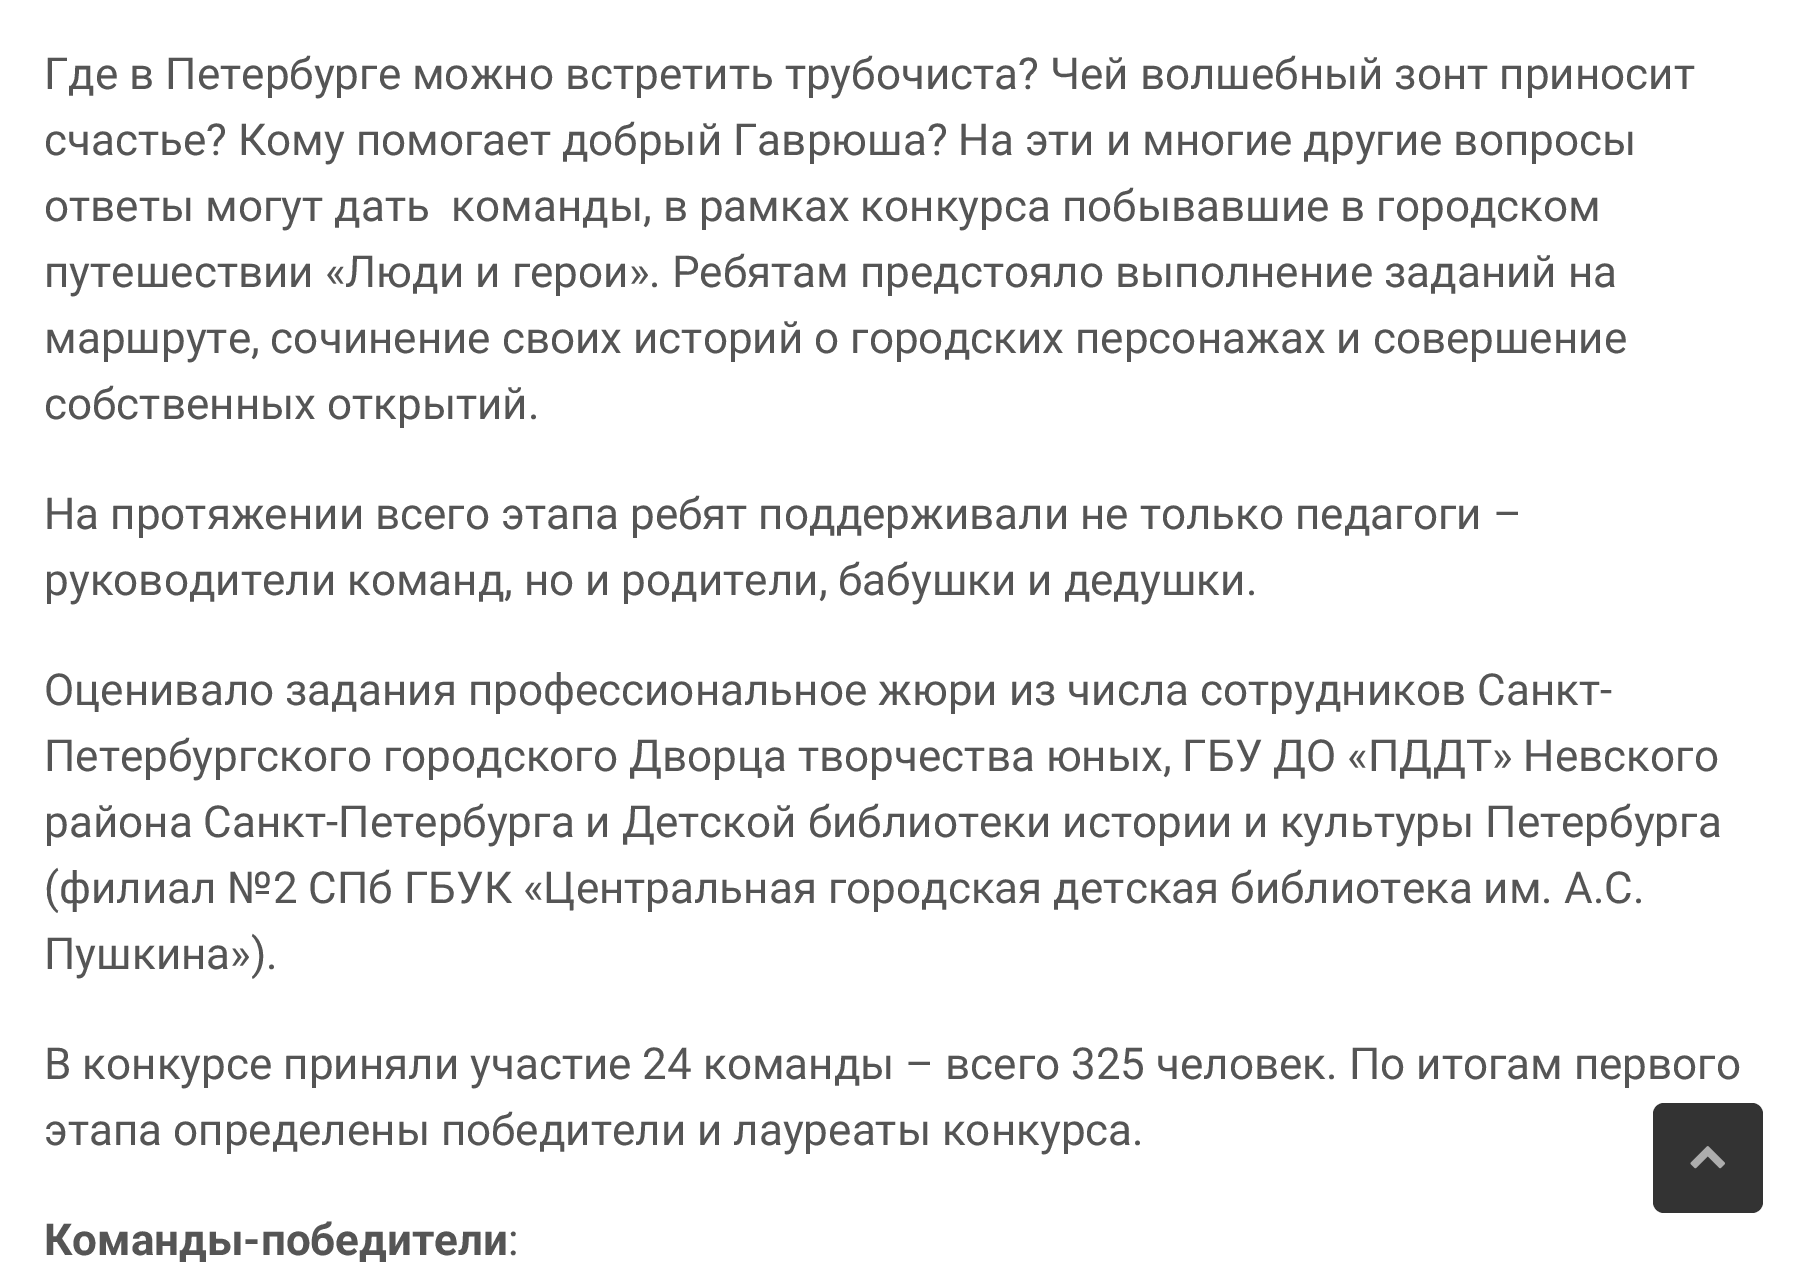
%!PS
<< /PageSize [1816 1267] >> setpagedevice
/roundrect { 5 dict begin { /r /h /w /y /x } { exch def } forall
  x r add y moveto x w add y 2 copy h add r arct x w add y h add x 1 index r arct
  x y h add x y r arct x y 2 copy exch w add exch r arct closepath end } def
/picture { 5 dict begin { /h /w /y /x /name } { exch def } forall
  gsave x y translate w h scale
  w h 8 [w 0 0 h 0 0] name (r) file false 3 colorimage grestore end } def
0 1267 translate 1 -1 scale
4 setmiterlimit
1 setgray
0 0 1816 1267 rectfill
/Roboto-Regular [44 0 0 -44 0 0] selectfont
0.333 setgray
44 89 moveto (Где в Петербурге можно встретить трубочиста? Чей волшебный зонт приносит) show
44 155 moveto (счастье? Кому помогает добрый Гаврюша? На эти и многие другие вопросы) show
44 221 moveto (ответы могут дать  команды, в рамках конкурса побывавшие в городском) show
44 287 moveto (путешествии «Люди и герои». Ребятам предстояло выполнение заданий на) show
44 353 moveto (маршруте, сочинение своих историй о городских персонажах и совершение) show
44 419 moveto (собственных открытий.) show
44 529 moveto (На протяжении всего этапа ребят поддерживали не только педагоги –) show
44 595 moveto (руководители команд, но и родители, бабушки и дедушки.) show
44 705 moveto (Оценивало задания профессиональное жюри из числа сотрудников Санкт-) show
44 771 moveto (Петербургского городского Дворца творчества юных, ГБУ ДО «ПДДТ» Невского) show
44 837 moveto (района Санкт-Петербурга и Детской библиотеки истории и культуры Петербурга) show
44 903 moveto (\(филиал №2 СПб ГБУК «Центральная городская детская библиотека им. А.С.) show
44 969 moveto (Пушкина»\).) show
44 1079 moveto (В конкурсе приняли участие 24 команды – всего 325 человек. По итогам первого) show
44 1145 moveto (этапа определены победители и лауреаты конкурса.) show
/Roboto-Bold [44 0 0 -44 0 0] selectfont
44 1255 moveto (Команды-победители) show
/Roboto-Regular [44 0 0 -44 0 0] selectfont
508 1255 moveto (:) show
0.2 setgray
1653 1103 110 110 11 roundrect fill
(img1.rgb) 1690 1146 35 23 picture
showpage
